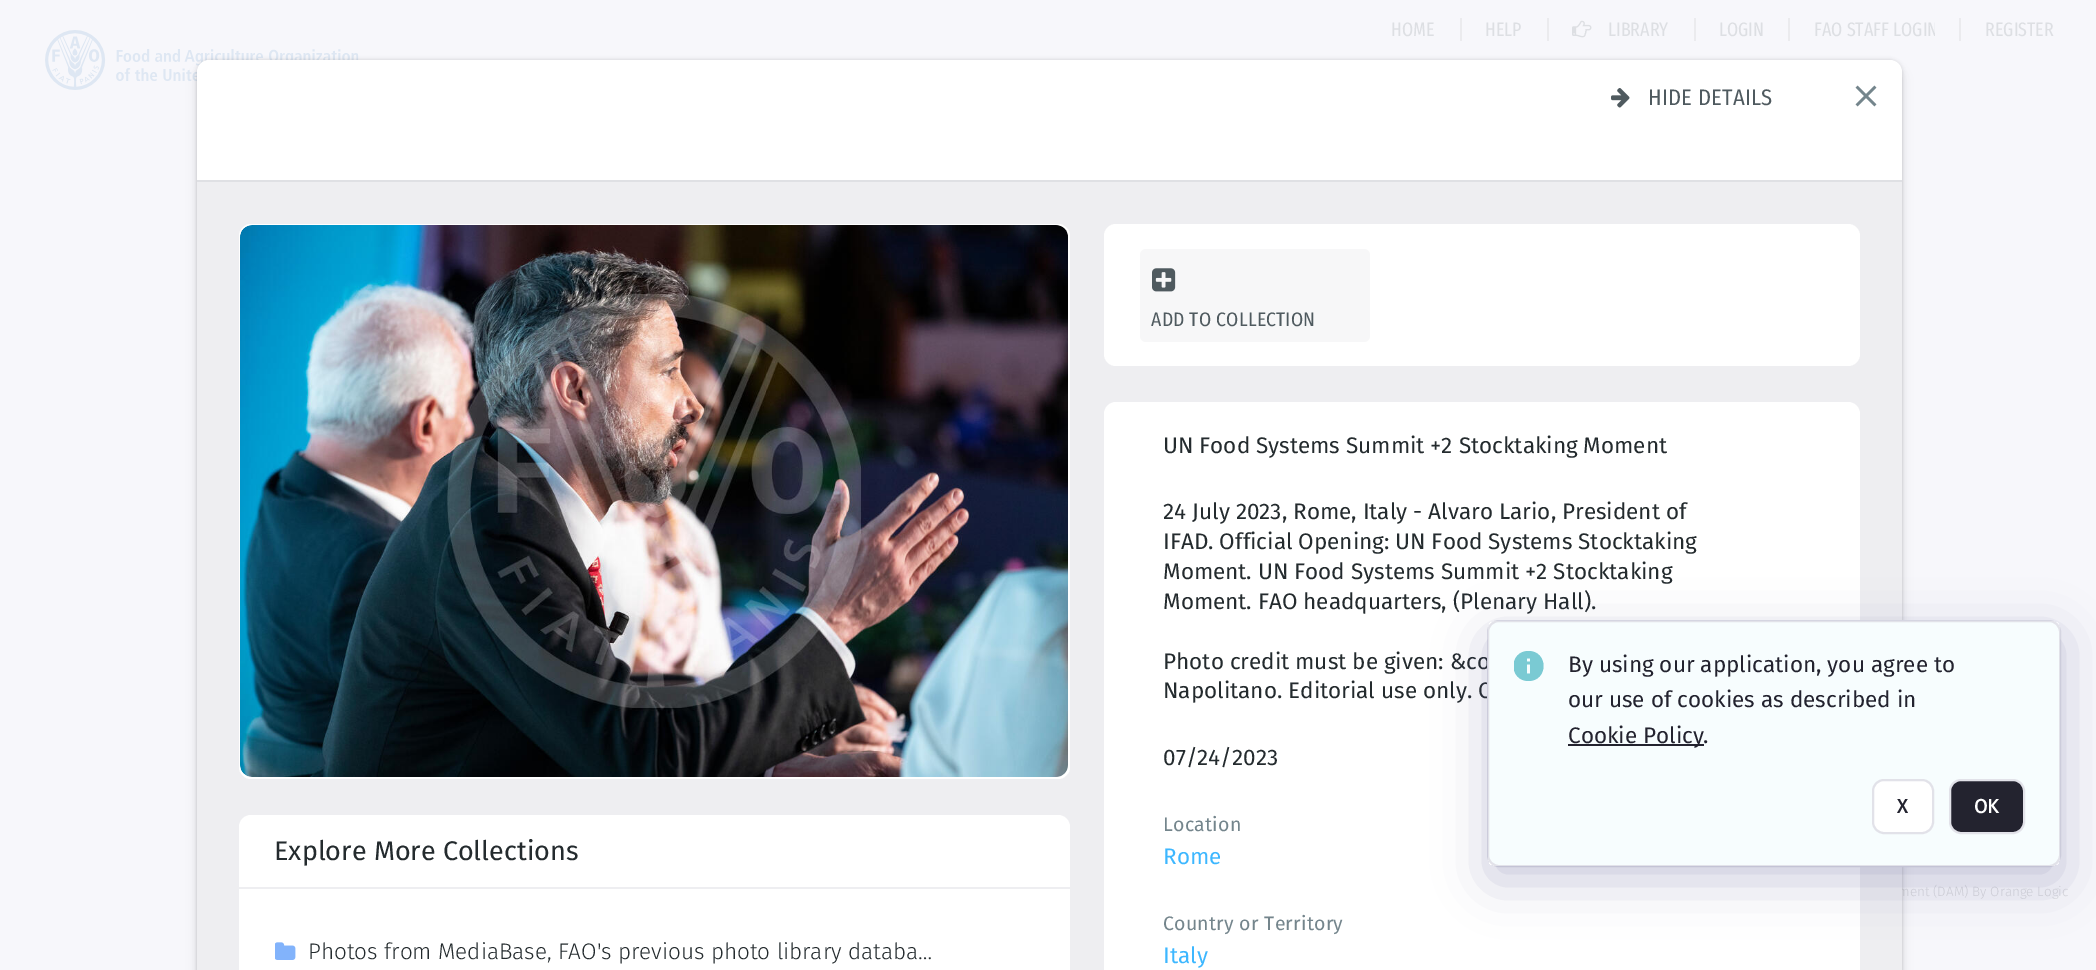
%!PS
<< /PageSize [2096 970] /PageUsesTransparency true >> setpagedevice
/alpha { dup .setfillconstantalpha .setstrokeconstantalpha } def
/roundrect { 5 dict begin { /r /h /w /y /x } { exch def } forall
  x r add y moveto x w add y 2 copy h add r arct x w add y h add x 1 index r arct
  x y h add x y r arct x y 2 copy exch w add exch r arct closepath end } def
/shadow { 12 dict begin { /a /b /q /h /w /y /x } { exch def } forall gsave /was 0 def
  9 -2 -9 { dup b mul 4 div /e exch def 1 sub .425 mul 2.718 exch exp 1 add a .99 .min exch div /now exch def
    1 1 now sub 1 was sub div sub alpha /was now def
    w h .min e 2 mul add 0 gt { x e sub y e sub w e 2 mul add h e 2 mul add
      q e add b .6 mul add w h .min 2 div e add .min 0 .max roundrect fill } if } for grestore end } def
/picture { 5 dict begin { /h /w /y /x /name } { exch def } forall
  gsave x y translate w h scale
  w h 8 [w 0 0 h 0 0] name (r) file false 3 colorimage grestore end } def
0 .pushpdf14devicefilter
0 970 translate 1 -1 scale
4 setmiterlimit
0.969 0.969 0.984 setrgbcolor
0 0 2096 970 rectfill
(img1.rgb) 45 30 314 60 picture
/FiraSansExtraCondensed-Regular [19.5 0 0 -19.5 0 0] selectfont
0.867 0.875 0.89 setrgbcolor
1391 36 moveto (HOME) show
0.922 0.922 0.933 setrgbcolor
1460 18 2 23 rectfill
0.867 0.875 0.89 setrgbcolor
1485 36 moveto (HELP) show
0.922 0.922 0.933 setrgbcolor
1547 18 2 23 rectfill
(img2.rgb) 1572 20 20 18 picture
0.867 0.875 0.89 setrgbcolor
1608 36 moveto (LIBRARY) show
0.922 0.922 0.933 setrgbcolor
1694 18 2 23 rectfill
0.867 0.875 0.89 setrgbcolor
1719 36 moveto (LOGIN) show
0.922 0.922 0.933 setrgbcolor
1788 18 2 23 rectfill
gsave
1814 18 121 24 rectclip
0.867 0.875 0.89 setrgbcolor
1814 36 moveto (FAO STAFF LOGIN) show
grestore
1959 18 2 23 rectfill
0.867 0.875 0.89 setrgbcolor
1985 36 moveto (REGISTER) show
/FiraSans-Light [13.5 0 0 -13.5 0 0] selectfont
0.843 0.847 0.859 setrgbcolor
1898 896 moveto (ment \(DAM\) By Orange Logic) show
0 setgray
197 60 1705 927 12 1.5 0.06 shadow
197 60 1705 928 12 2 0.08 shadow
197 68 1705 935 12 7 0.06 shadow
197 65 1705 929 12 4 0.06 shadow
1 setgray
newpath 209 60 moveto 1890 60 lineto 1896.5 60 1902 65.5 1902 72 curveto 1902 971 lineto 197 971 lineto 197 72 lineto 197 65.5 202.5 60 209 60 curveto closepath fill
(img3.rgb) 1611 88 19 20 picture
/FiraSansCondensed-Regular [22.5 0 0 -22.5 0 0] selectfont
0.31 0.353 0.373 setrgbcolor
1648 105 moveto 0.3 0 (HIDE DETAILS) ashow
0.875 0.878 0.894 setrgbcolor
197 180 1705 2 rectfill
0.933 0.933 0.945 setrgbcolor
197 182 1705 788 rectfill
1 setgray
239 224 831 555 12 roundrect fill
(img4.rgb) 240 225 828 552 picture
newpath 251 815 moveto 1058 815 lineto 1064.5 815 1070 820.5 1070 827 curveto 1070 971 lineto 239 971 lineto 239 827 lineto 239 820.5 244.5 815 251 815 curveto closepath fill
/FiraSans-Regular [27 0 0 -27 0 0] selectfont
0.141 0.169 0.18 setrgbcolor
274 860 moveto (Explore More Collections) show
(img5.rgb) 275 942 21 18 picture
/FiraSans-Light [22.5 0 0 -22.5 0 0] selectfont
308 959 moveto (Photos from MediaBase, FAO's previous photo library databa…) show
0.933 0.933 0.945 setrgbcolor
239 887 831 2 rectfill
1 setgray
1104 224 756 142 12 roundrect fill
0.969 0.969 0.973 setrgbcolor
1140 249 230 93 6 roundrect fill
(img6.rgb) 1152 268 24 24 picture
/FiraSansCondensed-Regular [19.5 0 0 -19.5 0 0] selectfont
0.31 0.353 0.373 setrgbcolor
1151 326 moveto 0.25 0 (ADD TO COLLECTION) ashow
1 setgray
newpath 1116 402 moveto 1848 402 lineto 1854.5 402 1860 407.5 1860 414 curveto 1860 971 lineto 1104 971 lineto 1104 414 lineto 1104 407.5 1109.5 402 1116 402 curveto closepath fill
/FiraSans-Regular [22.5 0 0 -22.5 0 0] selectfont
0.141 0.169 0.18 setrgbcolor
1163 453 moveto (UN Food Systems Summit +2 Stocktaking Moment) show
1163 519 moveto (24 July 2023, Rome, Italy - Alvaro Lario, President of) show
1163 549 moveto (IFAD. Official Opening: UN Food Systems Stocktaking) show
1163 579 moveto (Moment. UN Food Systems Summit +2 Stocktaking) show
1163 609 moveto (Moment. FAO headquarters, \(Plenary Hall\).) show
1163 669 moveto (Photo credit must be given: &co) show
1163 698 moveto (Napolitano. Editorial use only. C) show
1163 765 moveto (07/24/2023) show
/FiraSans-Regular [19.5 0 0 -19.5 0 0] selectfont
0.455 0.522 0.549 setrgbcolor
1163 831 moveto 0.25 0 (Location) ashow
/FiraSans-Regular [22.5 0 0 -22.5 0 0] selectfont
0.239 0.718 1 setrgbcolor
1163 864 moveto (Rome) show
/FiraSans-Regular [19.5 0 0 -19.5 0 0] selectfont
0.455 0.522 0.549 setrgbcolor
1163 930 moveto 0.25 0 (Country or Territory) ashow
/FiraSans-Regular [22.5 0 0 -22.5 0 0] selectfont
0.239 0.718 1 setrgbcolor
1163 963 moveto (Italy) show
(img7.rgb) 1855 85 22 22 picture
0.969 0.992 0.996 setrgbcolor
1488 621 572 245 11 roundrect gsave fill grestore
0.886 0.886 0.914 setrgbcolor
2 setlinewidth
stroke
gsave
newpath 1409 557 moveto 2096 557 lineto 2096 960 lineto 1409 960 lineto closepath 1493 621 moveto 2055 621 lineto 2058 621 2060 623 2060 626 curveto 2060 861 lineto 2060 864 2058 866 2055 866 curveto 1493 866 lineto 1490 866 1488 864 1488 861 curveto 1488 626 lineto 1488 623 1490 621 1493 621 curveto closepath eoclip newpath
0.302 0.302 0.529 setrgbcolor
1488 636 572 245 5 26 0.3 shadow
grestore
gsave
1514 651 30 30 rectclip
0.478 0.792 0.827 setrgbcolor
newpath 1528.5 651 moveto 1508.5 651 1508.5 681 1528.5 681 curveto 1548.5 681 1548.5 651 1528.5 651 curveto closepath 1530 673.5 moveto 1527 673.5 lineto 1527 664.5 lineto 1530 664.5 lineto closepath 1530 661.5 moveto 1527 661.5 lineto 1527 658.5 lineto 1530 658.5 lineto closepath fill
grestore
0.137 0.137 0.184 setrgbcolor
1568 672 moveto (By using our application, you agree to) show
1568 707 moveto (our use of cookies as described in) show
1568 744 136 2 rectfill
1568 743 moveto (Cookie Policy) show
1703 743 moveto (.) show
1 setgray
1873 780 60 53 11 roundrect gsave fill grestore
0.886 0.886 0.914 setrgbcolor
stroke
/FiraSans-Bold [19.5 0 0 -19.5 0 0] selectfont
0.137 0.137 0.184 setrgbcolor
1897 813 moveto (X) show
1950 780 74 53 11 roundrect gsave fill grestore
0.886 0.886 0.914 setrgbcolor
stroke
1 setgray
1974 813 moveto (OK) show
.poppdf14devicefilter showpage
